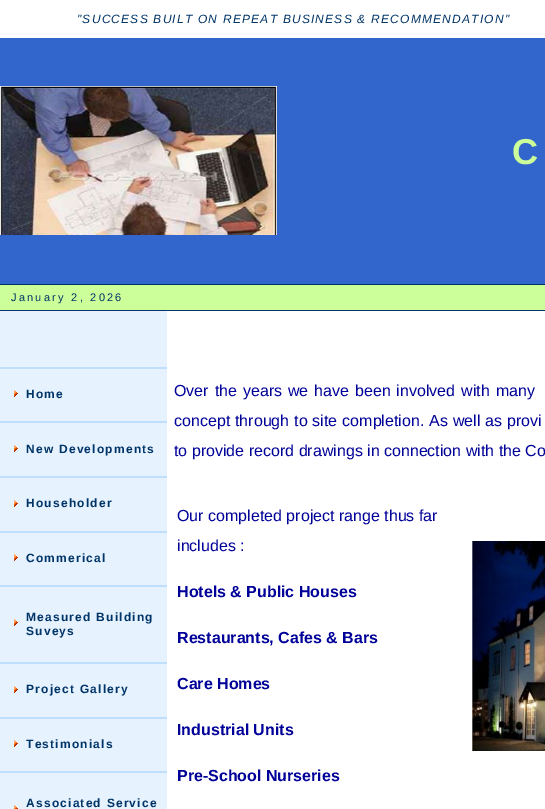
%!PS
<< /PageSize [545 809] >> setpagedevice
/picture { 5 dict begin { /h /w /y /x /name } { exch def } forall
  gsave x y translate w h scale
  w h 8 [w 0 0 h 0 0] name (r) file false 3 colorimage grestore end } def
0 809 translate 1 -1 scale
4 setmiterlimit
1 setgray
0 0 545 809 rectfill
/LiberationSans-Italic [12 0 0 -12 0 0] selectfont
0 0.2 0.4 setrgbcolor
77 23 moveto 1.2 0 ("SUCCESS BUILT ON REPEAT BUSINESS & RECOMMENDATION") ashow
0.2 0.4 0.8 setrgbcolor
0 38 545 246 rectfill
(img1.rgb) 0 86 277 149 picture
/LiberationSans-Bold [36 0 0 -36 0 0] selectfont
0.8 1 0.6 setrgbcolor
512 164 moveto 3 0 (C) ashow
0 0.2 0.4 setrgbcolor
0 284 545 1 rectfill
0.8 1 0.6 setrgbcolor
0 285 545 25 rectfill
/LiberationSans-Regular [11 0 0 -11 0 0] selectfont
0 0.2 0.4 setrgbcolor
11 301 moveto 2.25 0 (January 2, 2026) ashow
0 310 545 1 rectfill
0.902 0.953 1 setrgbcolor
0 311 167 498 rectfill
0.753 0.875 0.992 setrgbcolor
0 367 167 2 rectfill
0 421 167 2 rectfill
(img2.rgb) 14 390 4 7 picture
/LiberationSans-Bold [12 0 0 -12 0 0] selectfont
0 0.2 0.4 setrgbcolor
26 398 moveto 1.2 0 (Home) ashow
0.753 0.875 0.992 setrgbcolor
0 476 167 2 rectfill
(img2.rgb) 14 445 4 7 picture
0 0.2 0.4 setrgbcolor
26 453 moveto 1.2 0 (New Developments) ashow
0.753 0.875 0.992 setrgbcolor
0 531 167 2 rectfill
(img2.rgb) 14 500 4 7 picture
0 0.2 0.4 setrgbcolor
26 507 moveto 1.2 0 (Householder) ashow
0.753 0.875 0.992 setrgbcolor
0 585 167 2 rectfill
(img2.rgb) 14 554 4 7 picture
0 0.2 0.4 setrgbcolor
26 562 moveto 1.2 0 (Commerical) ashow
0.753 0.875 0.992 setrgbcolor
0 662 167 2 rectfill
(img2.rgb) 14 619 4 7 picture
0 0.2 0.4 setrgbcolor
26 621 moveto 1.2 0 (Measured Building) ashow
26 635 moveto 1.2 0 (Suveys) ashow
0.753 0.875 0.992 setrgbcolor
0 717 167 2 rectfill
(img2.rgb) 14 686 4 7 picture
0 0.2 0.4 setrgbcolor
26 693 moveto 1.2 0 (Project Gallery) ashow
0.753 0.875 0.992 setrgbcolor
0 771 167 2 rectfill
(img2.rgb) 14 740 4 7 picture
0 0.2 0.4 setrgbcolor
26 748 moveto 1.2 0 (Testimonials) ashow
(img3.rgb) 14 805 4 4 picture
26 807 moveto 1.2 0 (Associated Service) ashow
/LiberationSans-Regular [16 0 0 -16 0 0] selectfont
0 0 0.6 setrgbcolor
174 396 moveto 1.5 0 32 (Over the years we have been involved with many) widthshow
174 426 moveto 0.5 0 32 (concept through to site completion. As well as provi) widthshow
174 456 moveto (to provide record drawings in connection with the Co) show
177 521 moveto (Our completed project range thus far) show
177 551 moveto (includes :) show
/LiberationSans-Bold [16 0 0 -16 0 0] selectfont
177 597 moveto (Hotels & Public Houses) show
177 643 moveto (Restaurants, Cafes & Bars) show
177 689 moveto (Care Homes) show
177 735 moveto (Industrial Units) show
177 781 moveto (Pre-School Nurseries) show
(img4.rgb) 472 541 73 210 picture
showpage
